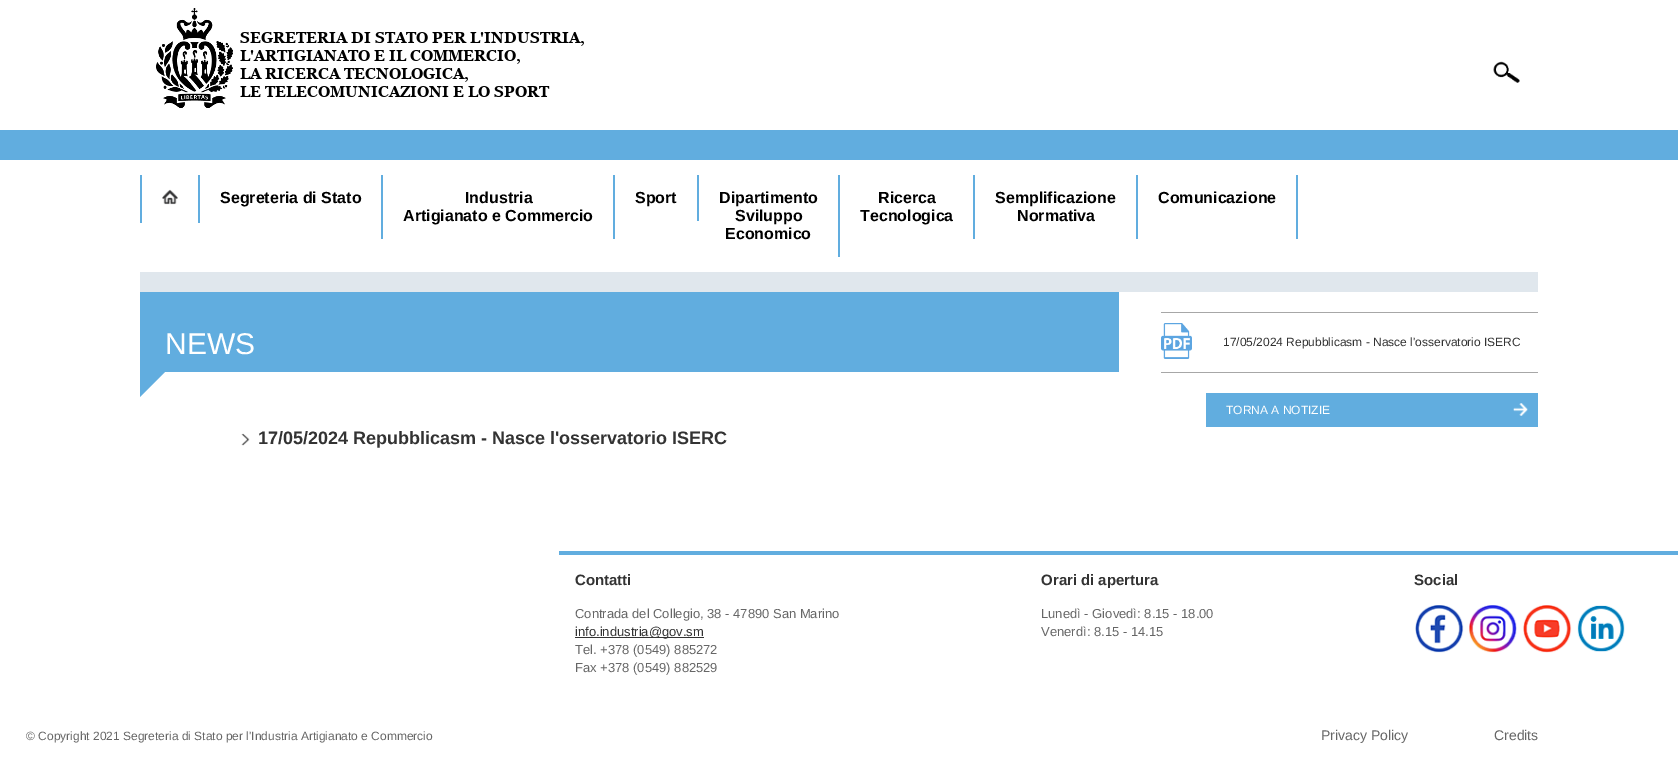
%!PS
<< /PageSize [1678 758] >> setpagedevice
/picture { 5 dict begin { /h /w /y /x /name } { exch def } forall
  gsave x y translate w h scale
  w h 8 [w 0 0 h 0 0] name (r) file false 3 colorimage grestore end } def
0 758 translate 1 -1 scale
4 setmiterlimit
1 setgray
0 0 1678 758 rectfill
0.38 0.678 0.875 setrgbcolor
0 130 1678 30 rectfill
(img1.rgb) 156 8 428 100 picture
(img2.rgb) 1493 61 27 22 picture
198 175 2 48 rectfill
140 175 2 48 rectfill
(img3.rgb) 162 189 16 16 picture
381 175 2 64 rectfill
/LiberationSans-Bold [16 0 0 -16 0 0] selectfont
0 setgray
220 203 moveto (Segreteria di Stato) show
0.38 0.678 0.875 setrgbcolor
613 175 2 64 rectfill
0 setgray
465 203 moveto (Industria) show
403 221 moveto (Artigianato e Commercio) show
0.38 0.678 0.875 setrgbcolor
697 175 2 46 rectfill
0 setgray
635 203 moveto (Sport) show
0.38 0.678 0.875 setrgbcolor
838 175 2 82 rectfill
0 setgray
719 203 moveto (Dipartimento) show
735 221 moveto (Sviluppo) show
725 239 moveto (Economico) show
0.38 0.678 0.875 setrgbcolor
973 175 2 64 rectfill
0 setgray
878 203 moveto (Ricerca) show
860 221 moveto (Tecnologica) show
0.38 0.678 0.875 setrgbcolor
1136 175 2 64 rectfill
0 setgray
995 203 moveto (Semplificazione) show
1017 221 moveto (Normativa) show
0.38 0.678 0.875 setrgbcolor
1296 175 2 64 rectfill
0 setgray
1158 203 moveto (Comunicazione) show
0.878 0.906 0.929 setrgbcolor
140 272 1398 20 rectfill
0.38 0.678 0.875 setrgbcolor
140 292 979 80 rectfill
/LiberationSans-Regular [30 0 0 -30 0 0] selectfont
1 setgray
165 354 moveto (NEWS) show
0.38 0.678 0.875 setrgbcolor
newpath 140 372 moveto 165 372 lineto 140 397 lineto closepath fill
(img4.rgb) 241 433 9 13 picture
/LiberationSans-Bold [18 0 0 -18 0 0] selectfont
0.2 setgray
258 444 moveto (17/05/2024 Repubblicasm - Nasce l'osservatorio ISERC) show
0.655 setgray
1161 312 377 1 rectfill
1161 372 377 1 rectfill
(img5.rgb) 1161 323 31 36 picture
/LiberationSans-Regular [12 0 0 -12 0 0] selectfont
0.2 setgray
1223 346 moveto (17/05/2024 Repubblicasm - Nasce l'osservatorio ISERC) show
0.38 0.678 0.875 setrgbcolor
1206 393 332 34 rectfill
(img6.rgb) 1513 403 15 13 picture
1 setgray
1226 414 moveto (TORNA A NOTIZIE) show
0.38 0.678 0.875 setrgbcolor
559 551 1119 4 rectfill
/LiberationSans-Bold [15 0 0 -15 0 0] selectfont
0.2 setgray
575 585 moveto (Contatti) show
/LiberationSans-Regular [13 0 0 -13 0 0] selectfont
0.4 setgray
575 618 moveto (Contrada del Collegio, 38 - 47890 San Marino) show
0.2 setgray
575 637 129 1 rectfill
575 636 moveto (info.industria@gov.sm) show
0.4 setgray
575 654 moveto (Tel. +378 \(0549\) 885272) show
575 672 moveto (Fax +378 \(0549\) 882529) show
/LiberationSans-Bold [15 0 0 -15 0 0] selectfont
0.2 setgray
1041 585 moveto (Orari di apertura) show
/LiberationSans-Regular [13 0 0 -13 0 0] selectfont
0.4 setgray
1041 618 moveto (Lunedì - Giovedì: 8.15 - 18.00) show
1041 636 moveto (Venerdì: 8.15 - 14.15) show
/LiberationSans-Bold [15 0 0 -15 0 0] selectfont
0.2 setgray
1414 585 moveto (Social) show
(img7.rgb) 1415 605 49 48 picture
(img8.rgb) 1469 605 48 48 picture
(img9.rgb) 1523 605 49 48 picture
(img10.rgb) 1577 605 48 47 picture
/LiberationSans-Regular [12 0 0 -12 0 0] selectfont
0.4 setgray
26 740 moveto (© Copyright 2021 Segreteria di Stato per l'Industria Artigianato e Commercio) show
/LiberationSans-Regular [14 0 0 -14 0 0] selectfont
1321 740 moveto (Privacy Policy) show
1494 740 moveto (Credits) show
showpage
